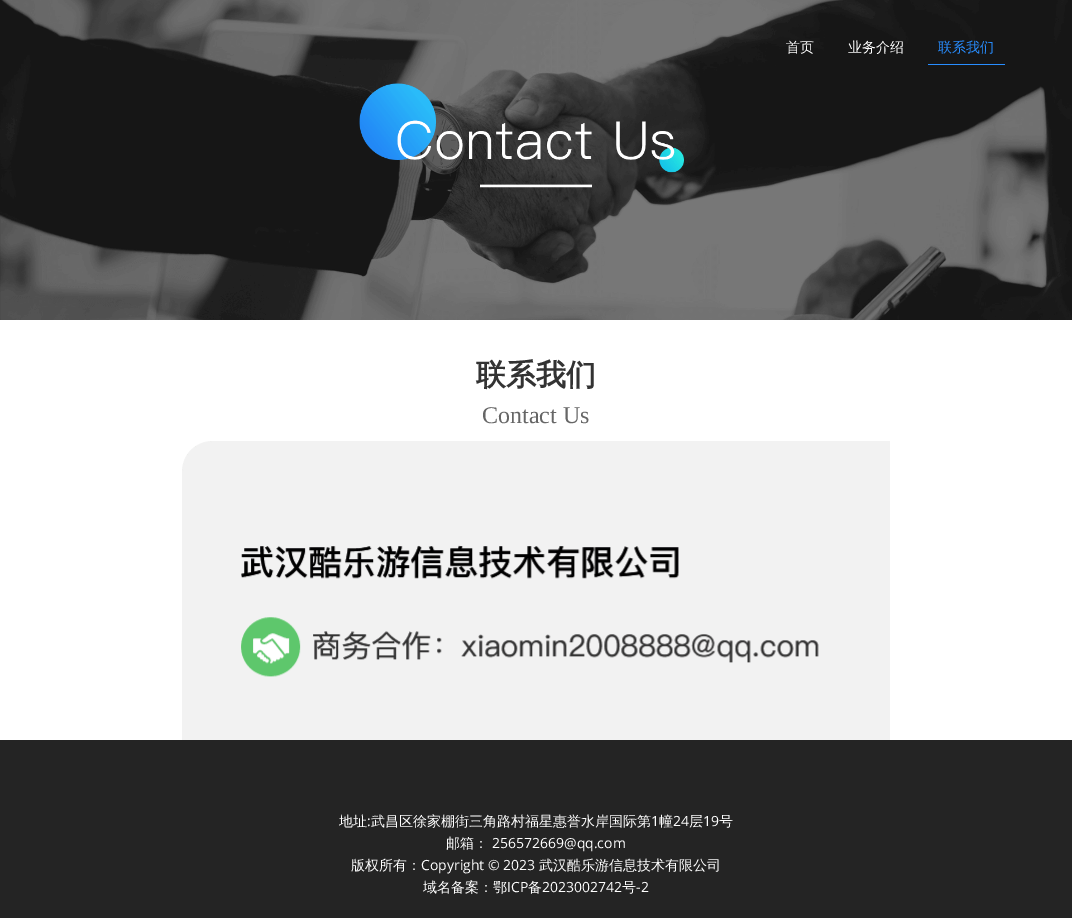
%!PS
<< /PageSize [1072 918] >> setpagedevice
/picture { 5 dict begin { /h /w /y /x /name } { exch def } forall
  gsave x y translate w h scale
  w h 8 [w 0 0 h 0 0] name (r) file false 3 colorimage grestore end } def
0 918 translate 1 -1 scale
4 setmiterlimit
1 setgray
0 0 1072 918 rectfill
(img1.rgb) 0 0 1072 320 picture
/WenQuanYiZenHei-Medium [14 0 0 -14 0 0] selectfont
786 52 moveto (首页) show
848 52 moveto (业务介绍) show
0.157 0.553 1 setrgbcolor
928 64 77 1 rectfill
938 52 moveto (联系我们) show
/WenQuanYiZenHei-Bold [30 0 0 -30 0 0] selectfont
0.2 setgray
476 385 moveto (联系我们) show
/LiberationSerif-Regular [24 0 0 -24 0 0] selectfont
0.4 setgray
482 423 moveto (Contact Us) show
(img2.rgb) 182 441 708 299 picture
0.141 setgray
0 740 1072 178 rectfill
/WenQuanYiZenHei-Medium [14 0 0 -14 0 0] selectfont
1 setgray
339 826 moveto (地址) show
/OpenSans-Regular [14 0 0 -14 0 0] selectfont
367 826 moveto (:) show
/WenQuanYiZenHei-Medium [14 0 0 -14 0 0] selectfont
371 826 moveto (武昌区徐家棚街三角路村福星惠誉水岸国际第) show
/OpenSans-Regular [14 0 0 -14 0 0] selectfont
651 826 moveto (1) show
/WenQuanYiZenHei-Medium [14 0 0 -14 0 0] selectfont
659 826 moveto (幢) show
/OpenSans-Regular [14 0 0 -14 0 0] selectfont
673 826 moveto (24) show
/WenQuanYiZenHei-Medium [14 0 0 -14 0 0] selectfont
689 826 moveto (层) show
/OpenSans-Regular [14 0 0 -14 0 0] selectfont
703 826 moveto (19) show
/WenQuanYiZenHei-Medium [14 0 0 -14 0 0] selectfont
719 826 moveto (号) show
446 848 moveto (邮箱：) show
/OpenSans-Regular [14 0 0 -14 0 0] selectfont
492 848 moveto (256572669@qq.com) show
/WenQuanYiZenHei-Medium [14 0 0 -14 0 0] selectfont
351 870 moveto (版权所有：) show
/OpenSans-Regular [14 0 0 -14 0 0] selectfont
421 870 moveto (Copyright © 2023) show
/WenQuanYiZenHei-Medium [14 0 0 -14 0 0] selectfont
539 870 moveto (武汉酷乐游信息技术有限公司) show
423 892 moveto (域名备案：鄂) show
/OpenSans-Regular [14 0 0 -14 0 0] selectfont
507 892 moveto (ICP) show
/WenQuanYiZenHei-Medium [14 0 0 -14 0 0] selectfont
528 892 moveto (备) show
/OpenSans-Regular [14 0 0 -14 0 0] selectfont
542 892 moveto (2023002742) show
/WenQuanYiZenHei-Medium [14 0 0 -14 0 0] selectfont
622 892 moveto (号) show
/OpenSans-Regular [14 0 0 -14 0 0] selectfont
636 892 moveto (-2) show
showpage
